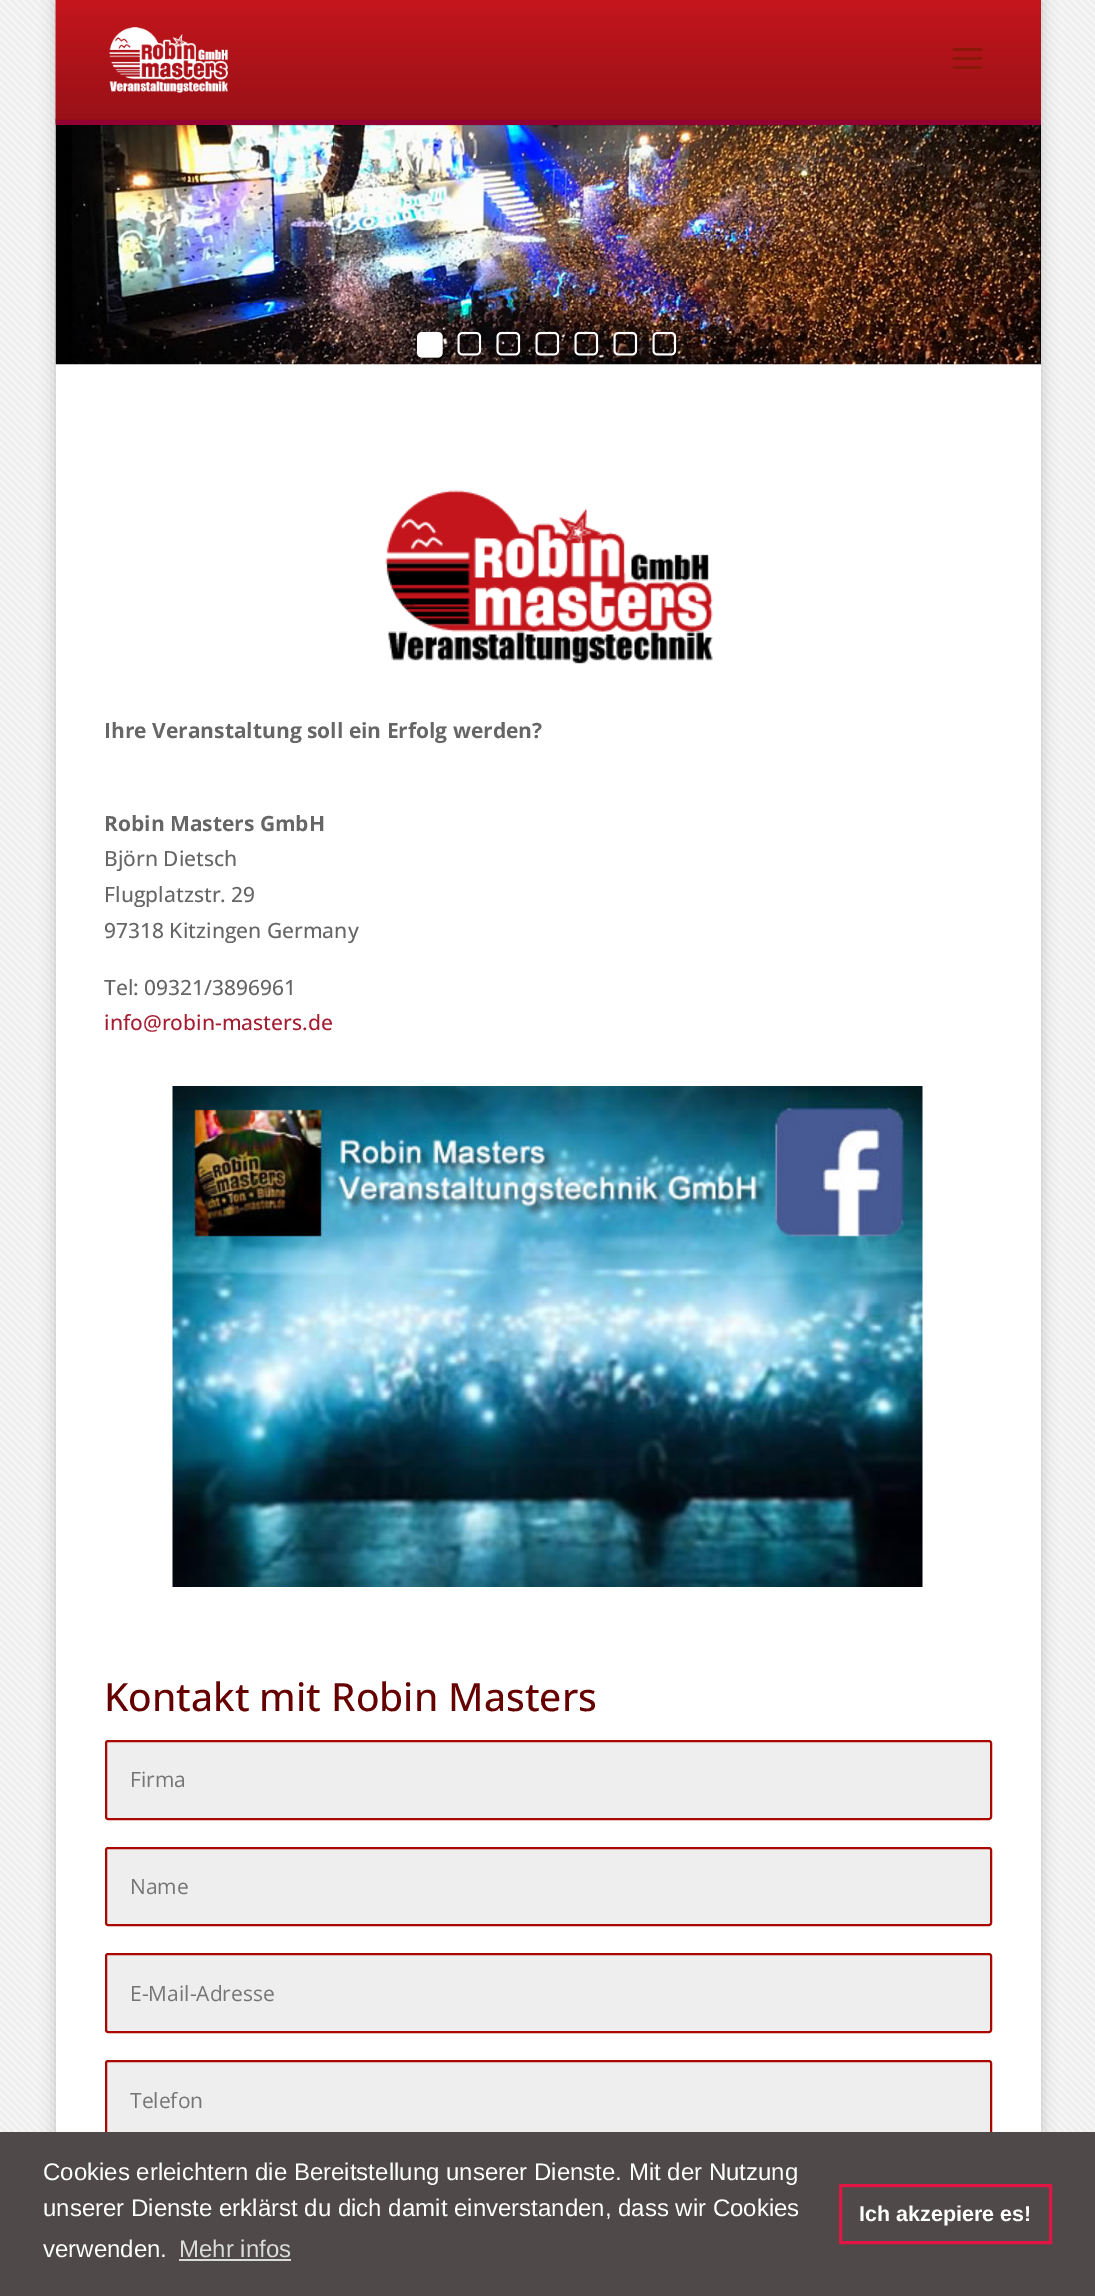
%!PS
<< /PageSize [1095 2296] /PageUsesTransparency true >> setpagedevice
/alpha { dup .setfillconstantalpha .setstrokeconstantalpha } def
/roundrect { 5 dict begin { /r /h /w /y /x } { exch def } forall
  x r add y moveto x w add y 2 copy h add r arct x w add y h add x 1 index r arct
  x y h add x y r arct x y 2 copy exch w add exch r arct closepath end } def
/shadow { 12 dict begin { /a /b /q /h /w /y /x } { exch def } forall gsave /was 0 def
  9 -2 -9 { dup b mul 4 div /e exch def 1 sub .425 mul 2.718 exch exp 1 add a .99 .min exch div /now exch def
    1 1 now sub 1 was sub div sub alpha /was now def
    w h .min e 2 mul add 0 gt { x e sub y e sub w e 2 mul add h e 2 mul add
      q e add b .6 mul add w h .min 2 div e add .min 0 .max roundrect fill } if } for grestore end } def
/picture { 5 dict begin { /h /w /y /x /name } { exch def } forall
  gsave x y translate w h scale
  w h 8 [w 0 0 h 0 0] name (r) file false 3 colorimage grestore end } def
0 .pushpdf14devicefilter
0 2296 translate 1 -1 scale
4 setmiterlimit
1 setgray
0 0 1095 2296 rectfill
(img1.rgb) 0 0 1095 2132 picture
0 setgray
56 0 985 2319 0 7.5 0.2 shadow
1 setgray
56 364 985 1768 rectfill
(img5.rgb) 55 118 986 247 picture
0.1 alpha
0 setgray
100 125 941 1 rectfill
1 alpha
(img2.rgb) 55 0 986 125 picture
0.576 0 0.196 setrgbcolor
56 120 985 5 rectfill
(img3.rgb) 109 27 119 66 picture
(img4.rgb) 952 48 31 21 picture
(img6.rgb) 417 331 26 27 picture
(img7.rgb) 457 331 25 25 picture
(img8.rgb) 496 331 25 25 picture
(img9.rgb) 535 331 25 25 picture
(img10.rgb) 574 331 25 25 picture
(img11.rgb) 613 331 25 25 picture
(img12.rgb) 652 331 25 25 picture
(img13.rgb) 385 490 328 174 picture
/OpenSans-Bold [21 0 0 -21 0 0] selectfont
0.4 setgray
104 738 moveto (Ihre Veranstaltung soll ein Erfolg werden?) show
104 831 moveto (Robin Masters GmbH) show
/OpenSans-Medium [21 0 0 -21 0 0] selectfont
104 866 moveto (Björn Dietsch) show
104 902 moveto (Flugplatzstr. 29) show
104 938 moveto (97318 Kitzingen Germany) show
104 995 moveto (Tel: 09321/3896961) show
0.647 0.114 0.196 setrgbcolor
104 1030 moveto (info@robin-masters.de) show
(img14.rgb) 172 1086 751 501 picture
/OpenSans-Medium [39 0 0 -39 0 0] selectfont
0.4 0 0 setrgbcolor
104 1711 moveto (Kontakt mit Robin Masters) show
0.933 setgray
106 1741 885 78 2 roundrect gsave fill grestore
0.659 0.031 0 setrgbcolor
2 setlinewidth
stroke
/OpenSans-Regular [21 0 0 -21 0 0] selectfont
0.459 setgray
130 1787 moveto (Firma) show
0.933 setgray
106 1848 885 77 2 roundrect gsave fill grestore
0.659 0.031 0 setrgbcolor
stroke
0.459 setgray
130 1894 moveto (Name) show
0.933 setgray
106 1954 885 78 2 roundrect gsave fill grestore
0.659 0.031 0 setrgbcolor
stroke
0.459 setgray
130 2001 moveto (E-Mail-Adresse) show
0.933 setgray
106 2061 885 77 2 roundrect gsave fill grestore
0.659 0.031 0 setrgbcolor
stroke
0.459 setgray
130 2108 moveto (Telefon) show
0.31 0.286 0.286 setrgbcolor
0 2132 1095 164 rectfill
/LiberationSans-Regular [24 0 0 -24 0 0] selectfont
1 setgray
43 2180 moveto (Cookies erleichtern die Bereitstellung unserer Dienste. Mit der Nutzung) show
43 2216 moveto (unserer Dienste erklärst du dich damit einverstanden, dass wir Cookies) show
43 2257 moveto (verwenden.) show
0.863 0.859 0.859 setrgbcolor
179 2257 moveto (Mehr infos) show
179 2259 112 2 rectfill
0.882 0.086 0.267 setrgbcolor
3 setlinewidth
840.5 2185.5 210 57 rectstroke
/LiberationSans-Bold [21.5 0 0 -21.5 0 0] selectfont
1 setgray
859 2221 moveto (Ich akzepiere es!) show
.poppdf14devicefilter showpage
